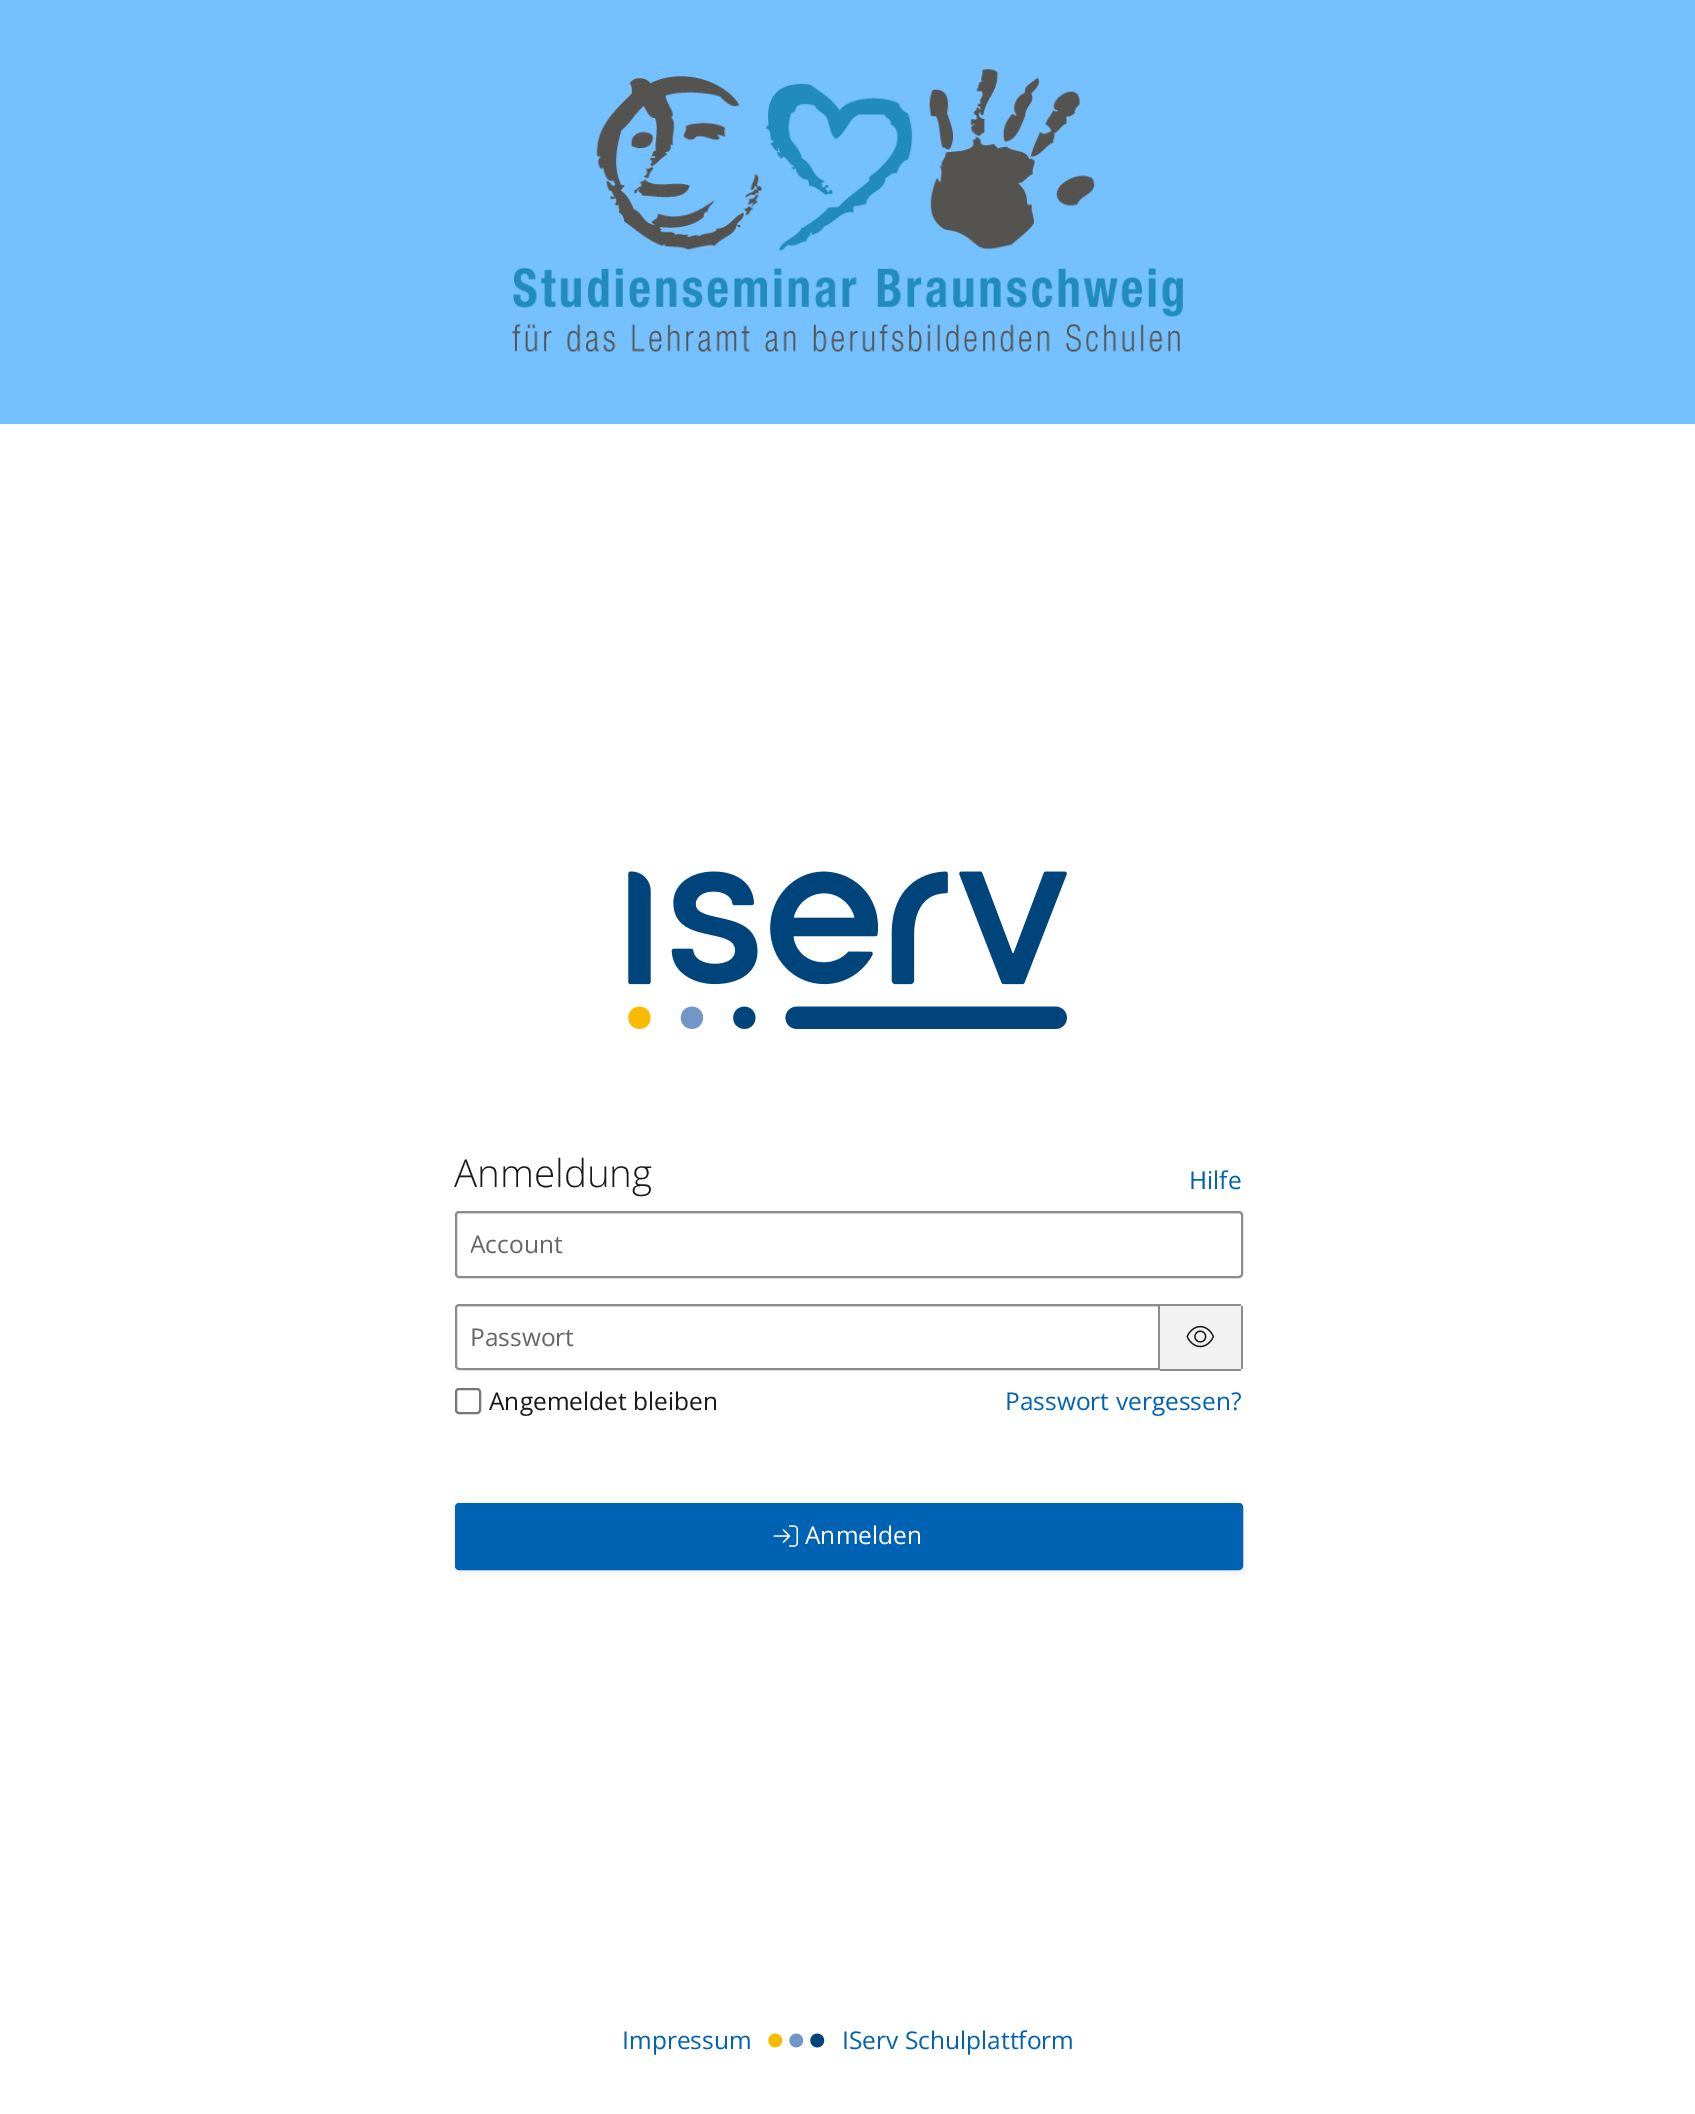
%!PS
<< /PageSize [1695 2114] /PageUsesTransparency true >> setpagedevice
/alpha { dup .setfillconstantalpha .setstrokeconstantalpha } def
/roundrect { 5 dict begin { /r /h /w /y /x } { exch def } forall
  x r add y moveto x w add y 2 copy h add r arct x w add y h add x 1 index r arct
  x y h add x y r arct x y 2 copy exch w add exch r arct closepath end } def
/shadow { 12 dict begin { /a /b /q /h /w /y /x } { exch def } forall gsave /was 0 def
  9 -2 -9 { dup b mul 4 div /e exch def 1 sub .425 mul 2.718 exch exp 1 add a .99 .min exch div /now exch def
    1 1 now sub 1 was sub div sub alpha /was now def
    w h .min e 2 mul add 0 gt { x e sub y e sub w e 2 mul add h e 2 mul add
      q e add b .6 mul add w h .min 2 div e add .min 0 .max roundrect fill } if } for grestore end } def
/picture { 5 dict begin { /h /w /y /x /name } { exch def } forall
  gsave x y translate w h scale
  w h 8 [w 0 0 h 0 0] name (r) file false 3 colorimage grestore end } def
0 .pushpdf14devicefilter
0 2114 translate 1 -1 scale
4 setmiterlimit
1 setgray
0 0 1695 2114 rectfill
0.459 0.757 1 setrgbcolor
0 0 1695 424 rectfill
(img1.rgb) 512 69 671 283 picture
(img2.rgb) 628 871 439 158 picture
/OpenSans-Light [38.5 0 0 -38.5 0 0] selectfont
0.102 setgray
454 1187 moveto (Anmeldung) show
/OpenSans-Regular [24.5 0 0 -24.5 0 0] selectfont
0 0.384 0.702 setrgbcolor
1189 1189 moveto (Hilfe) show
0.925 setgray
newpath 458 1214 moveto 1239 1214 lineto 1240 1214 1241 1215 1241 1216 curveto 1241 1215 1241 1213 1239 1213 curveto 459 1213 lineto 457 1213 457 1215 457 1216 curveto closepath fill
0.549 setgray
2 setlinewidth
456 1212 786 65 3 roundrect stroke
gsave
471 1227 756 33 rectclip
0.4 setgray
470 1253 moveto (Account) show
grestore
0.925 setgray
newpath 458 1307 moveto 1158 1307 lineto 1158 1369 lineto 1159 1369 lineto 1159 1306 lineto 459 1306 lineto 458 1306 457 1307 457 1308 curveto closepath fill
0.549 setgray
newpath 459 1305 moveto 1159 1305 lineto 1159 1369 lineto 459 1369 lineto 457.5 1369 456 1367.5 456 1366 curveto 456 1308 lineto 456 1306.5 457.5 1305 459 1305 curveto closepath stroke
0.4 setgray
470 1346 moveto (Passwort) show
0.949 setgray
newpath 1160 1304 moveto 1239 1304 lineto 1241 1304 1243 1306 1243 1308 curveto 1243 1366 lineto 1243 1368 1241 1370 1239 1370 curveto 1160 1370 lineto closepath fill
0.549 setgray
1160 1304 81 2 rectfill
1241 1306 2 63 rectfill
1160 1369 81 2 rectfill
(img3.rgb) 1186 1325 29 23 picture
0.463 setgray
456 1389 24 24 3 roundrect stroke
0.102 setgray
489 1410 moveto (Angemeldet bleiben) show
0 0.384 0.702 setrgbcolor
1005 1410 moveto (Passwort vergessen?) show
0 setgray
455 1505 788 67 4 2.5 0.08 shadow
0 0.384 0.702 setrgbcolor
456 1504 786 65 3 roundrect gsave fill grestore
stroke
(img4.rgb) 773 1525 25 22 picture
1 setgray
805 1544 moveto (Anmelden) show
0 0.384 0.702 setrgbcolor
622 2049 moveto (Impressum) show
(img5.rgb) 768 2033 15 15 picture
(img6.rgb) 789 2033 15 15 picture
(img7.rgb) 810 2033 15 15 picture
842 2049 moveto (IServ Schulplattform) show
.poppdf14devicefilter showpage
